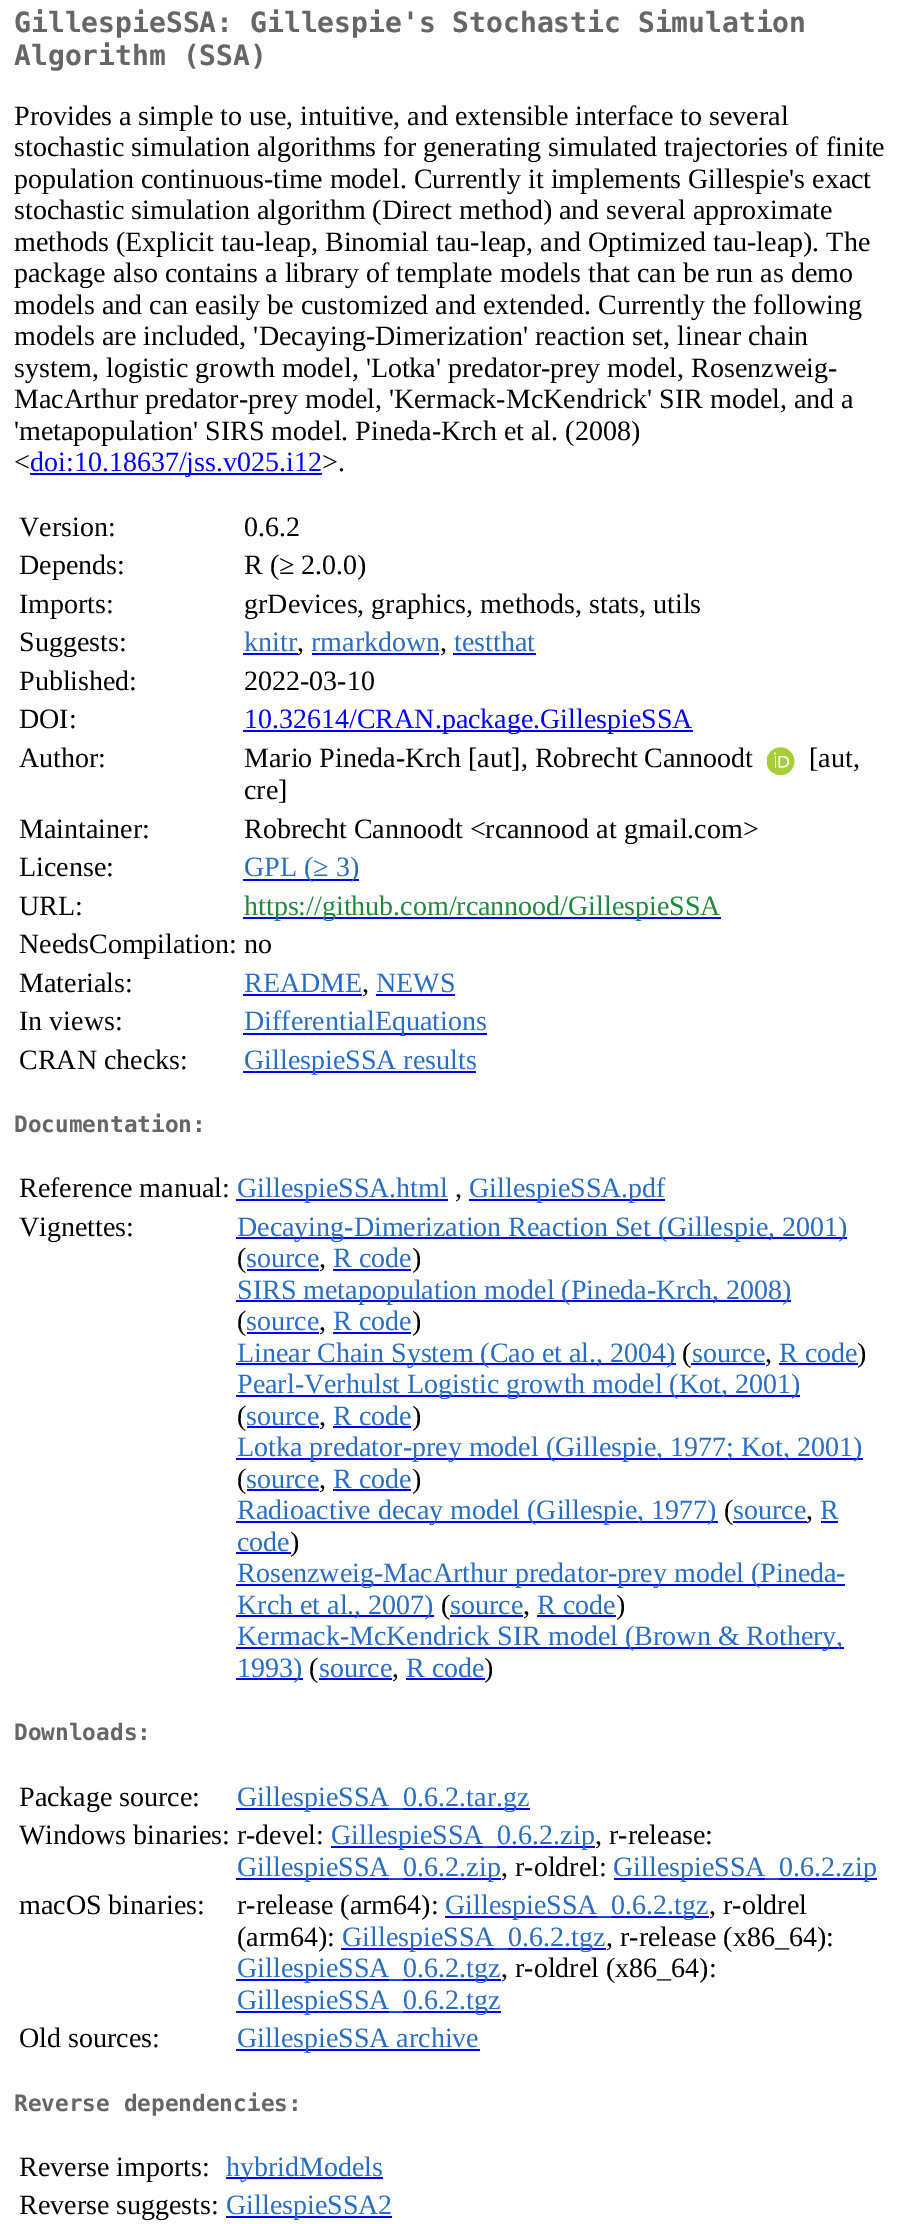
%!PS
<< /PageSize [905 2224] >> setpagedevice
/picture { 5 dict begin { /h /w /y /x /name } { exch def } forall
  gsave x y translate w h scale
  w h 8 [w 0 0 h 0 0] name (r) file false 3 colorimage grestore end } def
0 2224 translate 1 -1 scale
4 setmiterlimit
1 setgray
0 0 905 2224 rectfill
/DejaVuSansMono-Bold [28 0 0 -28 0 0] selectfont
0.4 setgray
14 32 moveto (GillespieSSA: Gillespie's Stochastic Simulation) show
14 65 moveto (Algorithm \(SSA\)) show
/LiberationSerif-Regular [28 0 0 -28 0 0] selectfont
0 setgray
14 125 moveto (Provides a simple to use, intuitive, and extensible interface to several) show
14 156 moveto (stochastic simulation algorithms for generating simulated trajectories of finite) show
14 188 moveto (population continuous-time model. Currently it implements Gillespie's exact) show
14 219 moveto (stochastic simulation algorithm \(Direct method\) and several approximate) show
14 251 moveto (methods \(Explicit tau-leap, Binomial tau-leap, and Optimized tau-leap\). The) show
14 282 moveto (package also contains a library of template models that can be run as demo) show
14 314 moveto (models and can easily be customized and extended. Currently the following) show
14 345 moveto (models are included, 'Decaying-Dimerization' reaction set, linear chain) show
14 377 moveto (system, logistic growth model, 'Lotka' predator-prey model, Rosenzweig-) show
14 408 moveto (MacArthur predator-prey model, 'Kermack-McKendrick' SIR model, and a) show
14 440 moveto ('metapopulation' SIRS model. Pineda-Krch et al. \(2008\)) show
14 471 moveto (<) show
0 0 1 setrgbcolor
30 473 292 2 rectfill
30 471 moveto (doi:10.18637/jss.v025.i12) show
0 setgray
322 471 moveto (>.) show
19 536 moveto (Version:) show
244 536 moveto (0.6.2) show
19 574 moveto (Depends:) show
244 574 moveto (R \(≥ 2.0.0\)) show
19 613 moveto (Imports:) show
244 613 moveto (grDevices, graphics, methods, stats, utils) show
19 651 moveto (Suggests:) show
0.153 0.427 0.765 setrgbcolor
244 651 moveto (knitr) show
0 0 1 setrgbcolor
243 653 55 2 rectfill
0 setgray
297 651 moveto (,) show
0.153 0.427 0.765 setrgbcolor
311 651 moveto (rmarkdown) show
0 0 1 setrgbcolor
312 653 127 2 rectfill
0 setgray
440 651 moveto (,) show
0.153 0.427 0.765 setrgbcolor
454 651 moveto (testthat) show
0 0 1 setrgbcolor
453 653 83 2 rectfill
0 setgray
19 690 moveto (Published:) show
244 690 moveto (2022-03-10) show
19 728 moveto (DOI:) show
0 0 1 setrgbcolor
243 730 450 2 rectfill
244 728 moveto (10.32614/CRAN.package.GillespieSSA) show
0 setgray
19 767 moveto (Author:) show
244 767 moveto (Mario Pineda-Krch [aut], Robrecht Cannoodt) show
(img1.rgb) 767 747 28 28 picture
809 767 moveto ([aut,) show
244 799 moveto (cre]) show
19 838 moveto (Maintainer:) show
244 838 moveto (Robrecht Cannoodt <rcannood at gmail.com>) show
19 876 moveto (License:) show
0 0 1 setrgbcolor
243 879 116 2 rectfill
0.153 0.427 0.765 setrgbcolor
244 876 moveto (GPL \(≥ 3\)) show
0 setgray
19 915 moveto (URL:) show
0 0 1 setrgbcolor
243 917 478 2 rectfill
0.122 0.533 0.239 setrgbcolor
244 915 moveto (https://github.com/rcannood/GillespieSSA) show
0 setgray
19 953 moveto (NeedsCompilation: no) show
19 992 moveto (Materials:) show
0.153 0.427 0.765 setrgbcolor
244 992 moveto (README) show
0 0 1 setrgbcolor
243 994 119 2 rectfill
0 setgray
362 992 moveto (,) show
0.153 0.427 0.765 setrgbcolor
376 992 moveto (NEWS) show
0 0 1 setrgbcolor
376 994 79 2 rectfill
0 setgray
19 1030 moveto (In views:) show
0 0 1 setrgbcolor
243 1033 244 2 rectfill
0.153 0.427 0.765 setrgbcolor
244 1030 moveto (DifferentialEquations) show
0 setgray
19 1069 moveto (CRAN checks:) show
0 0 1 setrgbcolor
243 1071 233 2 rectfill
0.153 0.427 0.765 setrgbcolor
244 1069 moveto (GillespieSSA results) show
/DejaVuSansMono-Bold [22.75 0 0 -22.75 0 0] selectfont
0.4 setgray
14 1132 moveto (Documentation:) show
/LiberationSerif-Regular [28 0 0 -28 0 0] selectfont
0 setgray
19 1197 moveto (Reference manual:) show
0 0 1 setrgbcolor
236 1199 212 2 rectfill
0.153 0.427 0.765 setrgbcolor
237 1197 moveto (GillespieSSA.html) show
0 setgray
455 1197 moveto (,) show
0 0 1 setrgbcolor
469 1199 196 2 rectfill
0.153 0.427 0.765 setrgbcolor
469 1197 moveto (GillespieSSA.pdf) show
0 setgray
19 1236 moveto (Vignettes:) show
0 0 1 setrgbcolor
236 1237 611 2 rectfill
0.153 0.427 0.765 setrgbcolor
237 1236 moveto (Decaying-Dimerization Reaction Set \(Gillespie, 2001\)) show
0 setgray
237 1267 moveto (\() show
0.153 0.427 0.765 setrgbcolor
246 1267 moveto (source) show
0 0 1 setrgbcolor
247 1269 72 2 rectfill
0 setgray
319 1267 moveto (,) show
0.153 0.427 0.765 setrgbcolor
333 1267 moveto (R code) show
0 0 1 setrgbcolor
333 1269 78 2 rectfill
0 setgray
412 1267 moveto (\)) show
0 0 1 setrgbcolor
236 1300 555 2 rectfill
0.153 0.427 0.765 setrgbcolor
237 1299 moveto (SIRS metapopulation model \(Pineda-Krch, 2008\)) show
0 setgray
237 1330 moveto (\() show
0.153 0.427 0.765 setrgbcolor
246 1330 moveto (source) show
0 0 1 setrgbcolor
247 1332 72 2 rectfill
0 setgray
319 1330 moveto (,) show
0.153 0.427 0.765 setrgbcolor
333 1330 moveto (R code) show
0 0 1 setrgbcolor
333 1332 78 2 rectfill
0 setgray
412 1330 moveto (\)) show
0 0 1 setrgbcolor
236 1363 440 2 rectfill
0.153 0.427 0.765 setrgbcolor
237 1362 moveto (Linear Chain System \(Cao et al., 2004\)) show
0 setgray
682 1362 moveto (\() show
0.153 0.427 0.765 setrgbcolor
692 1362 moveto (source) show
0 0 1 setrgbcolor
691 1363 74 2 rectfill
0 setgray
765 1362 moveto (,) show
0.153 0.427 0.765 setrgbcolor
779 1362 moveto (R code) show
0 0 1 setrgbcolor
779 1363 79 2 rectfill
0 setgray
857 1362 moveto (\)) show
0 0 1 setrgbcolor
236 1395 564 2 rectfill
0.153 0.427 0.765 setrgbcolor
237 1393 moveto (Pearl-Verhulst Logistic growth model \(Kot, 2001\)) show
0 setgray
237 1425 moveto (\() show
0.153 0.427 0.765 setrgbcolor
246 1425 moveto (source) show
0 0 1 setrgbcolor
247 1426 72 2 rectfill
0 setgray
319 1425 moveto (,) show
0.153 0.427 0.765 setrgbcolor
333 1425 moveto (R code) show
0 0 1 setrgbcolor
333 1426 78 2 rectfill
0 setgray
412 1425 moveto (\)) show
0 0 1 setrgbcolor
236 1458 627 2 rectfill
0.153 0.427 0.765 setrgbcolor
237 1456 moveto (Lotka predator-prey model \(Gillespie, 1977; Kot, 2001\)) show
0 setgray
237 1488 moveto (\() show
0.153 0.427 0.765 setrgbcolor
246 1488 moveto (source) show
0 0 1 setrgbcolor
247 1489 72 2 rectfill
0 setgray
319 1488 moveto (,) show
0.153 0.427 0.765 setrgbcolor
333 1488 moveto (R code) show
0 0 1 setrgbcolor
333 1489 78 2 rectfill
0 setgray
412 1488 moveto (\)) show
0 0 1 setrgbcolor
236 1521 482 2 rectfill
0.153 0.427 0.765 setrgbcolor
237 1519 moveto (Radioactive decay model \(Gillespie, 1977\)) show
0 setgray
724 1519 moveto (\() show
0.153 0.427 0.765 setrgbcolor
733 1519 moveto (source) show
0 0 1 setrgbcolor
733 1521 74 2 rectfill
0 setgray
806 1519 moveto (,) show
0.153 0.427 0.765 setrgbcolor
820 1519 moveto (R) show
0 0 1 setrgbcolor
821 1521 17 2 rectfill
0.153 0.427 0.765 setrgbcolor
237 1551 moveto (code) show
0 0 1 setrgbcolor
236 1552 55 2 rectfill
0 setgray
290 1551 moveto (\)) show
0 0 1 setrgbcolor
236 1584 609 2 rectfill
0.153 0.427 0.765 setrgbcolor
237 1582 moveto (Rosenzweig-MacArthur predator-prey model \(Pineda-) show
0 0 1 setrgbcolor
236 1615 198 2 rectfill
0.153 0.427 0.765 setrgbcolor
237 1614 moveto (Krch et al., 2007\)) show
0 setgray
441 1614 moveto (\() show
0.153 0.427 0.765 setrgbcolor
450 1614 moveto (source) show
0 0 1 setrgbcolor
450 1615 73 2 rectfill
0 setgray
523 1614 moveto (,) show
0.153 0.427 0.765 setrgbcolor
537 1614 moveto (R code) show
0 0 1 setrgbcolor
537 1615 79 2 rectfill
0 setgray
616 1614 moveto (\)) show
0 0 1 setrgbcolor
236 1647 608 2 rectfill
0.153 0.427 0.765 setrgbcolor
237 1645 moveto (Kermack-McKendrick SIR model \(Brown & Rothery,) show
0 0 1 setrgbcolor
236 1678 67 2 rectfill
0.153 0.427 0.765 setrgbcolor
237 1677 moveto (1993\)) show
0 setgray
309 1677 moveto (\() show
0.153 0.427 0.765 setrgbcolor
319 1677 moveto (source) show
0 0 1 setrgbcolor
319 1678 73 2 rectfill
0 setgray
392 1677 moveto (,) show
0.153 0.427 0.765 setrgbcolor
406 1677 moveto (R code) show
0 0 1 setrgbcolor
406 1678 79 2 rectfill
0 setgray
484 1677 moveto (\)) show
/DejaVuSansMono-Bold [22.75 0 0 -22.75 0 0] selectfont
0.4 setgray
14 1740 moveto (Downloads:) show
/LiberationSerif-Regular [28 0 0 -28 0 0] selectfont
0 setgray
19 1806 moveto (Package source:) show
0 0 1 setrgbcolor
236 1808 294 2 rectfill
0.153 0.427 0.765 setrgbcolor
237 1806 moveto (GillespieSSA_0.6.2.tar.gz) show
0 setgray
19 1844 moveto (Windows binaries: r-devel:) show
0 0 1 setrgbcolor
331 1846 264 2 rectfill
0.153 0.427 0.765 setrgbcolor
331 1844 moveto (GillespieSSA_0.6.2.zip) show
0 setgray
595 1844 moveto (, r-release:) show
0 0 1 setrgbcolor
236 1878 265 2 rectfill
0.153 0.427 0.765 setrgbcolor
237 1876 moveto (GillespieSSA_0.6.2.zip) show
0 setgray
501 1876 moveto (, r-oldrel:) show
0 0 1 setrgbcolor
614 1878 263 2 rectfill
0.153 0.427 0.765 setrgbcolor
613 1876 moveto (GillespieSSA_0.6.2.zip) show
0 setgray
19 1914 moveto (macOS binaries:) show
237 1914 moveto (r-release \(arm64\):) show
0 0 1 setrgbcolor
445 1916 264 2 rectfill
0.153 0.427 0.765 setrgbcolor
445 1914 moveto (GillespieSSA_0.6.2.tgz) show
0 setgray
709 1914 moveto (, r-oldrel) show
237 1946 moveto (\(arm64\):) show
0 0 1 setrgbcolor
341 1948 265 2 rectfill
0.153 0.427 0.765 setrgbcolor
342 1946 moveto (GillespieSSA_0.6.2.tgz) show
0 setgray
606 1946 moveto (, r-release \(x86_64\):) show
0 0 1 setrgbcolor
236 1979 265 2 rectfill
0.153 0.427 0.765 setrgbcolor
237 1977 moveto (GillespieSSA_0.6.2.tgz) show
0 setgray
501 1977 moveto (, r-oldrel \(x86_64\):) show
0 0 1 setrgbcolor
236 2011 265 2 rectfill
0.153 0.427 0.765 setrgbcolor
237 2009 moveto (GillespieSSA_0.6.2.tgz) show
0 setgray
19 2047 moveto (Old sources:) show
0 0 1 setrgbcolor
236 2049 244 2 rectfill
0.153 0.427 0.765 setrgbcolor
237 2047 moveto (GillespieSSA archive) show
/DejaVuSansMono-Bold [22.75 0 0 -22.75 0 0] selectfont
0.4 setgray
14 2111 moveto (Reverse dependencies:) show
/LiberationSerif-Regular [28 0 0 -28 0 0] selectfont
0 setgray
19 2176 moveto (Reverse imports:) show
0 0 1 setrgbcolor
226 2177 157 2 rectfill
0.153 0.427 0.765 setrgbcolor
226 2176 moveto (hybridModels) show
0 setgray
19 2214 moveto (Reverse suggests:) show
0 0 1 setrgbcolor
226 2216 166 2 rectfill
0.153 0.427 0.765 setrgbcolor
226 2214 moveto (GillespieSSA2) show
showpage
